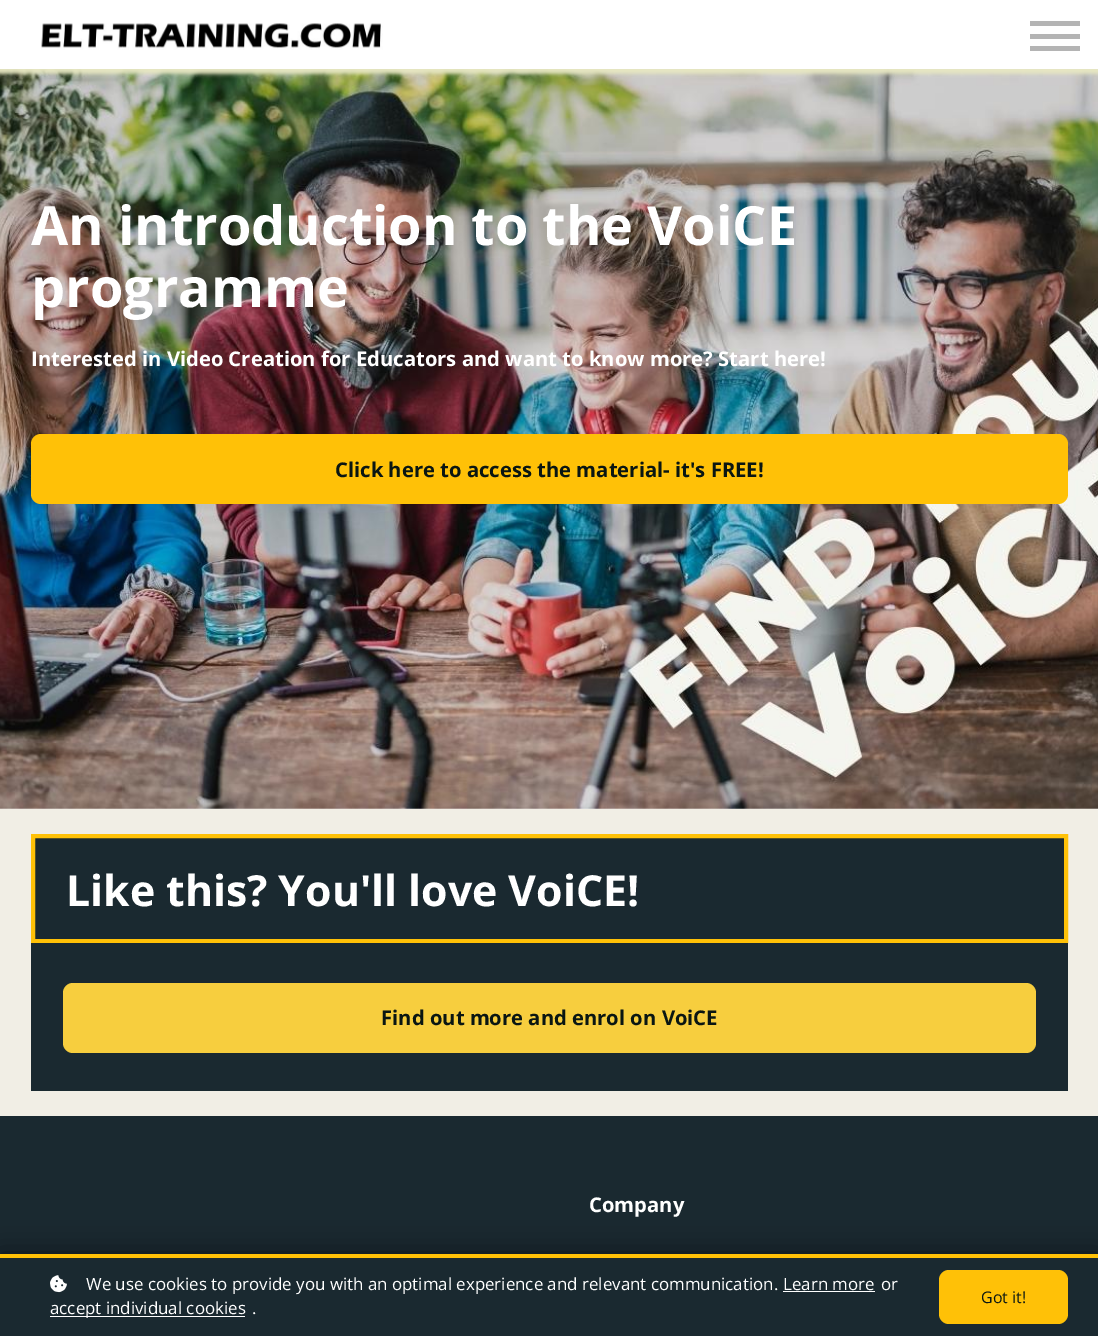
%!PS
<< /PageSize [1098 1336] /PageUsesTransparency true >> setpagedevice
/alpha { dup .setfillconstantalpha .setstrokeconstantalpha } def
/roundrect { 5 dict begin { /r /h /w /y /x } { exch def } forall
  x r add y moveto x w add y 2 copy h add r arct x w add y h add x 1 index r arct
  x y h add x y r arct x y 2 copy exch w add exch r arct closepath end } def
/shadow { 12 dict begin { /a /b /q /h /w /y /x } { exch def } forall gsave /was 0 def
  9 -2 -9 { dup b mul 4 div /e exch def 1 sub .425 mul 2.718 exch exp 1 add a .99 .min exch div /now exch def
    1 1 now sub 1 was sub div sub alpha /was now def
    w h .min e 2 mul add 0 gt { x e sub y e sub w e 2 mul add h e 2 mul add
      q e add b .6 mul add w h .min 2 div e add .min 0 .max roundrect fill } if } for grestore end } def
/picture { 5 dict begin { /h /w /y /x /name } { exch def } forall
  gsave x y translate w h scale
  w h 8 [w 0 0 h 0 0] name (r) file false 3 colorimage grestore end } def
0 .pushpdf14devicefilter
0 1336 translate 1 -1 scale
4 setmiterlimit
1 setgray
0 0 1098 1336 rectfill
(img2.rgb) 0 69 1098 740 picture
0.906 0.906 0.761 setrgbcolor
-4 -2 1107 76 0 2 1 shadow
1 setgray
0 0 1098 69 rectfill
(img1.rgb) 41 23 342 27 picture
0.706 setgray
1030 46 50 5 rectfill
1030 21 50 5 rectfill
1030 34 50 5 rectfill
/OpenSans-Bold [54 0 0 -54 0 0] selectfont
1 setgray
31 245 moveto (An introduction to the VoiCE) show
31 307 moveto (programme) show
/OpenSans-Bold [20.25 0 0 -20.25 0 0] selectfont
31 366 moveto (Interested in Video Creation for Educators and want to know more? Start here!) show
1 0.757 0.027 setrgbcolor
31 434 1037 70 10 roundrect fill
0.039 0.086 0.071 setrgbcolor
335 477 moveto (Click here to access the material- it's FREE!) show
0.945 0.933 0.898 setrgbcolor
0 809 1098 307 rectfill
0.102 0.161 0.188 setrgbcolor
newpath 33 836 moveto 1066 836 lineto 1066 941 lineto 33 941 lineto closepath gsave fill grestore
1 0.757 0.027 setrgbcolor
4 setlinewidth
stroke
/OpenSans-Bold [42.75 0 0 -42.75 0 0] selectfont
1 setgray
66 906 moveto (Like this? You'll love VoiCE!) show
0.102 0.161 0.188 setrgbcolor
31 943 1037 148 rectfill
0.969 0.808 0.243 setrgbcolor
63 983 973 70 10 roundrect fill
/OpenSans-Bold [20.25 0 0 -20.25 0 0] selectfont
0.039 0.086 0.071 setrgbcolor
381 1025 moveto (Find out more and enrol on VoiCE) show
0.102 0.161 0.188 setrgbcolor
0 1116 1098 138 rectfill
1 setgray
589 1212 moveto (Company) show
0 setgray
0 1254 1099 82 0 12.5 0.5 shadow
0.102 0.161 0.188 setrgbcolor
0 1258 1098 78 rectfill
1 0.757 0.027 setrgbcolor
0 1254 1098 4 rectfill
(img3.rgb) 50 1275 17 18 picture
/OpenSans-Regular [16.9 0 0 -16.9 0 0] selectfont
1 setgray
86 1290 moveto (We use cookies to provide you with an optimal experience and relevant communication.) show
783 1290 moveto (Learn more) show
783 1291 92 1 rectfill
881 1290 moveto (or) show
50 1316 195 1 rectfill
50 1314 moveto (accept individual cookies) show
252 1314 moveto (.) show
1 0.757 0.027 setrgbcolor
939 1270 129 54 10 roundrect fill
/OpenSans-Regular [16 0 0 -16 0 0] selectfont
0.039 0.086 0.071 setrgbcolor
981 1303 moveto (Got it!) show
.poppdf14devicefilter showpage
